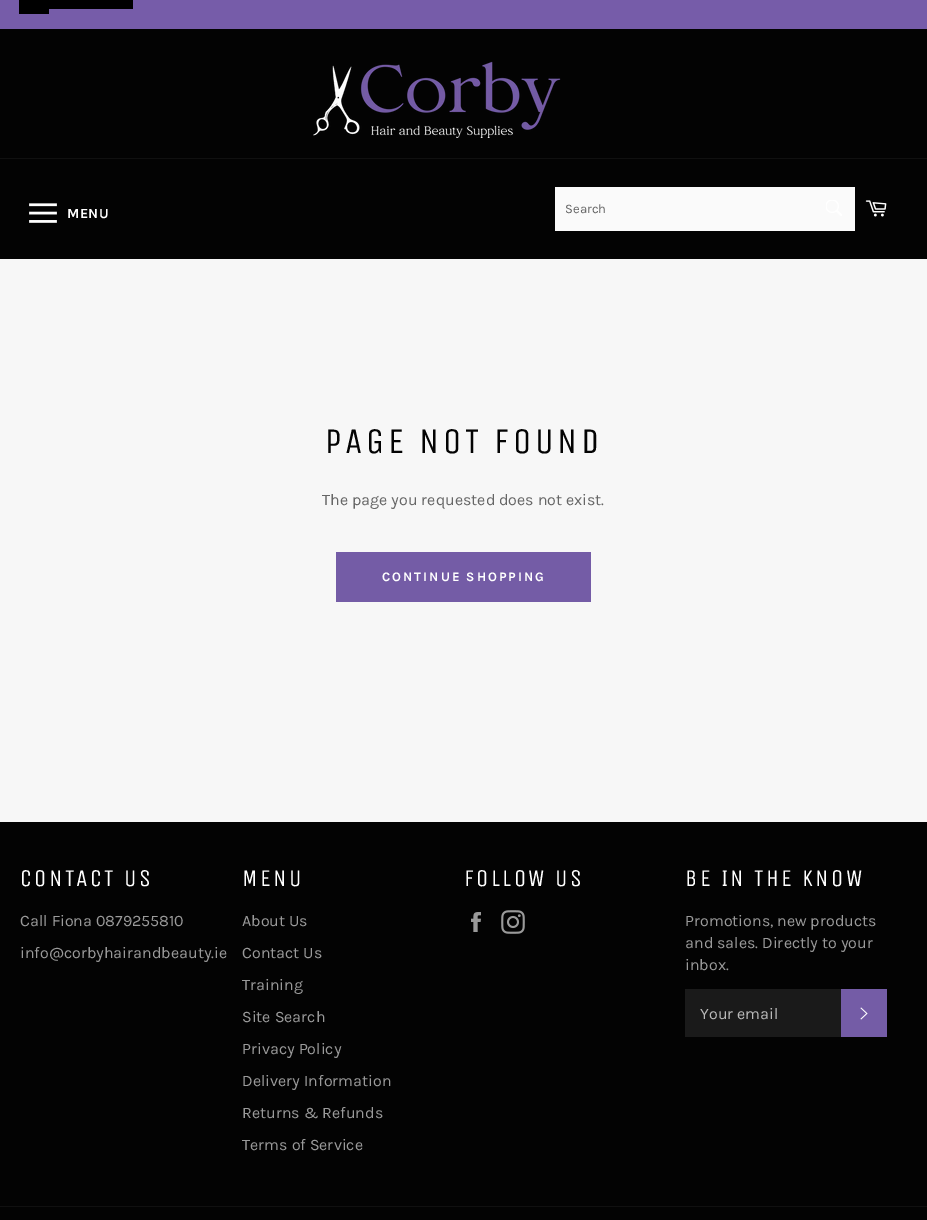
%!PS
<< /PageSize [927 1220] >> setpagedevice
/picture { 5 dict begin { /h /w /y /x /name } { exch def } forall
  gsave x y translate w h scale
  w h 8 [w 0 0 h 0 0] name (r) file false 3 colorimage grestore end } def
0 1220 translate 1 -1 scale
4 setmiterlimit
0.969 setgray
0 0 927 1220 rectfill
0.463 0.361 0.663 setrgbcolor
0 0 927 29 rectfill
0 setgray
19 0 30 14 rectfill
49 0 84 9 rectfill
0.012 setgray
0 29 927 129 rectfill
0 159 927 100 rectfill
0.063 setgray
0 158 927 1 rectfill
(img1.rgb) 29 203 28 20 picture
/Karla-Bold [14 0 0 -14 0 0] selectfont
1 setgray
67 218 moveto 0.5 0 (MENU) ashow
(img2.rgb) 313 61 248 77 picture
0.98 setgray
555 187 300 44 rectfill
/Karla-Regular [13 0 0 -13 0 0] selectfont
0.4 setgray
565 213 moveto (Search) show
(img3.rgb) 826 200 16 16 picture
(img4.rgb) 865 200 22 17 picture
/UnicaOne-Regular [36 0 0 -36 0 0] selectfont
0.012 setgray
325 453 moveto 3.6 0 (PAGE NOT FOUND) ashow
/Karla-Regular [16 0 0 -16 0 0] selectfont
0.4 setgray
322 505 moveto (The page you requested does not exist.) show
0.455 0.361 0.651 setrgbcolor
336 552 255 50 rectfill
/Karla-Bold [13 0 0 -13 0 0] selectfont
1 setgray
382 581 moveto 2 0 (CONTINUE SHOPPING) ashow
0.012 setgray
0 822 927 398 rectfill
/UnicaOne-Regular [24 0 0 -24 0 0] selectfont
1 setgray
20 886 moveto 2.4 0 (CONTACT US) ashow
/Karla-Regular [16 0 0 -16 0 0] selectfont
0.604 setgray
20 926 moveto (Call Fiona 0879255810) show
20 958 moveto (info@corbyhairandbeauty.ie) show
/UnicaOne-Regular [24 0 0 -24 0 0] selectfont
1 setgray
242 886 moveto 2.4 0 (MENU) ashow
/Karla-Regular [16 0 0 -16 0 0] selectfont
0.604 setgray
242 926 moveto (About Us) show
242 958 moveto (Contact Us) show
242 990 moveto (Training) show
242 1022 moveto (Site Search) show
242 1054 moveto (Privacy Policy) show
242 1086 moveto (Delivery Information) show
242 1118 moveto (Returns & Refunds) show
242 1150 moveto (Terms of Service) show
/UnicaOne-Regular [24 0 0 -24 0 0] selectfont
1 setgray
464 886 moveto 2.4 0 (FOLLOW US) ashow
(img5.rgb) 471 912 10 20 picture
(img6.rgb) 501 910 24 24 picture
685 886 moveto 2.4 0 (BE IN THE KNOW) ashow
/Karla-Regular [16 0 0 -16 0 0] selectfont
0.604 setgray
685 926 moveto (Promotions, new products) show
685 948 moveto (and sales. Directly to your) show
685 970 moveto (inbox.) show
0.102 setgray
685 989 156 48 rectfill
0.729 setgray
700 1019 moveto (Your email) show
0.455 0.361 0.651 setrgbcolor
841 989 46 48 rectfill
(img7.rgb) 860 1007 8 13 picture
0.063 setgray
0 1206 927 1 rectfill
showpage
